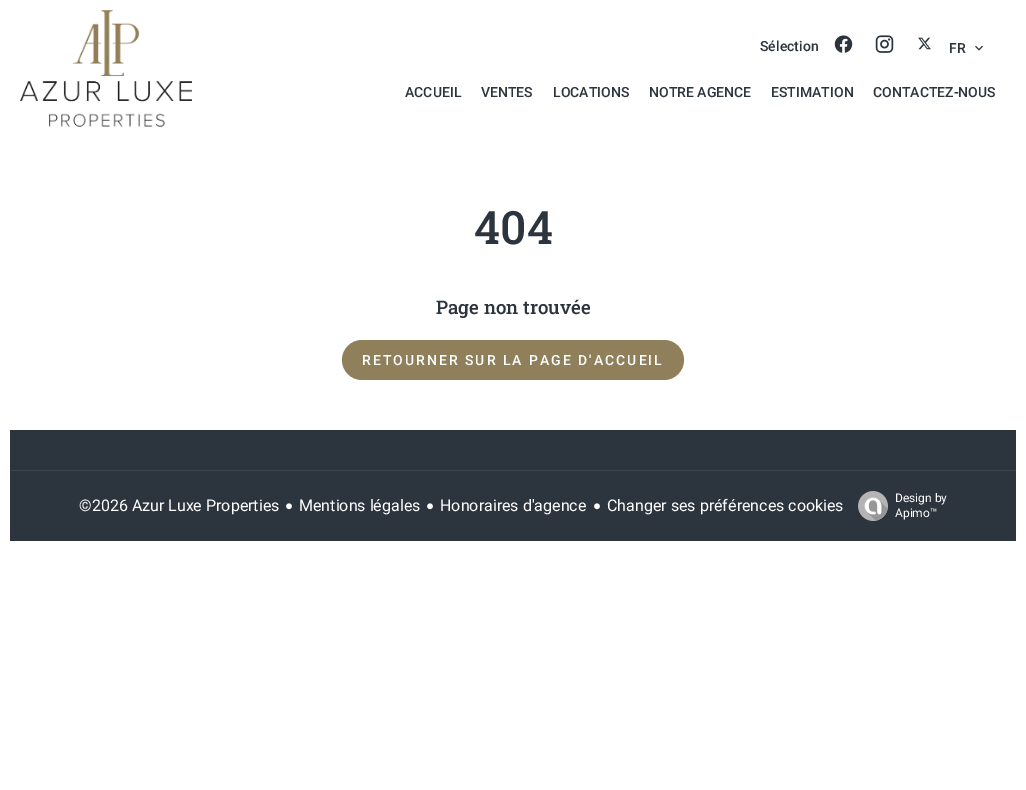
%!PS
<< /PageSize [1026 790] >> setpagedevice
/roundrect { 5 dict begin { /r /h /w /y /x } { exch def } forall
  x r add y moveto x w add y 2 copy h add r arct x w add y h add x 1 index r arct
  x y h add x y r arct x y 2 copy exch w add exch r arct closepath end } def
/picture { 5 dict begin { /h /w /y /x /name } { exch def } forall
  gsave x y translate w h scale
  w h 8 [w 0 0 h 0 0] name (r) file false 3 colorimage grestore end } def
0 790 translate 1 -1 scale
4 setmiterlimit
1 setgray
0 0 1026 790 rectfill
(img1.rgb) 20 10 172 117 picture
/Roboto-Medium [14 0 0 -14 0 0] selectfont
0.173 0.204 0.239 setrgbcolor
760 51 moveto (Sélection) show
(img2.rgb) 834 35 19 18 picture
(img3.rgb) 875 35 19 18 picture
(img4.rgb) 918 37 13 13 picture
949 53 moveto (FR) show
(img5.rgb) 975 45 8 6 picture
405 97 moveto (ACCUEIL) show
481 97 moveto (VENTES) show
553 97 moveto (LOCATIONS) show
649 97 moveto (NOTRE AGENCE) show
771 97 moveto (ESTIMATION) show
873 97 moveto (CONTACTEZ-NOUS) show
/RobotoSlab-Medium [46 0 0 -46 0 0] selectfont
474 244 moveto (404) show
/RobotoSlab-Medium [18.75 0 0 -18.75 0 0] selectfont
436 314 moveto (Page non trouvée) show
0.565 0.498 0.357 setrgbcolor
342 340 342 40 20 roundrect fill
/Roboto-Medium [14 0 0 -14 0 0] selectfont
1 setgray
362 365 moveto 2 0 (RETOURNER SUR LA PAGE D'ACCUEIL) ashow
0.173 0.204 0.239 setrgbcolor
10 430 1006 111 rectfill
0.239 0.267 0.302 setrgbcolor
10 470 1006 1 rectfill
/Roboto-Regular [16 0 0 -16 0 0] selectfont
1 setgray
79 511 moveto (©2026 Azur Luxe Properties) show
(img6.rgb) 286 503 6 7 picture
299 511 moveto (Mentions légales) show
(img6.rgb) 427 503 6 7 picture
440 511 moveto (Honoraires d'agence) show
(img6.rgb) 594 503 6 7 picture
607 511 moveto (Changer ses préférences cookies) show
(img7.rgb) 858 491 30 30 picture
/Roboto-Regular [12 0 0 -12 0 0] selectfont
895 502 moveto (Design by) show
895 517 moveto (Apimo™) show
showpage
